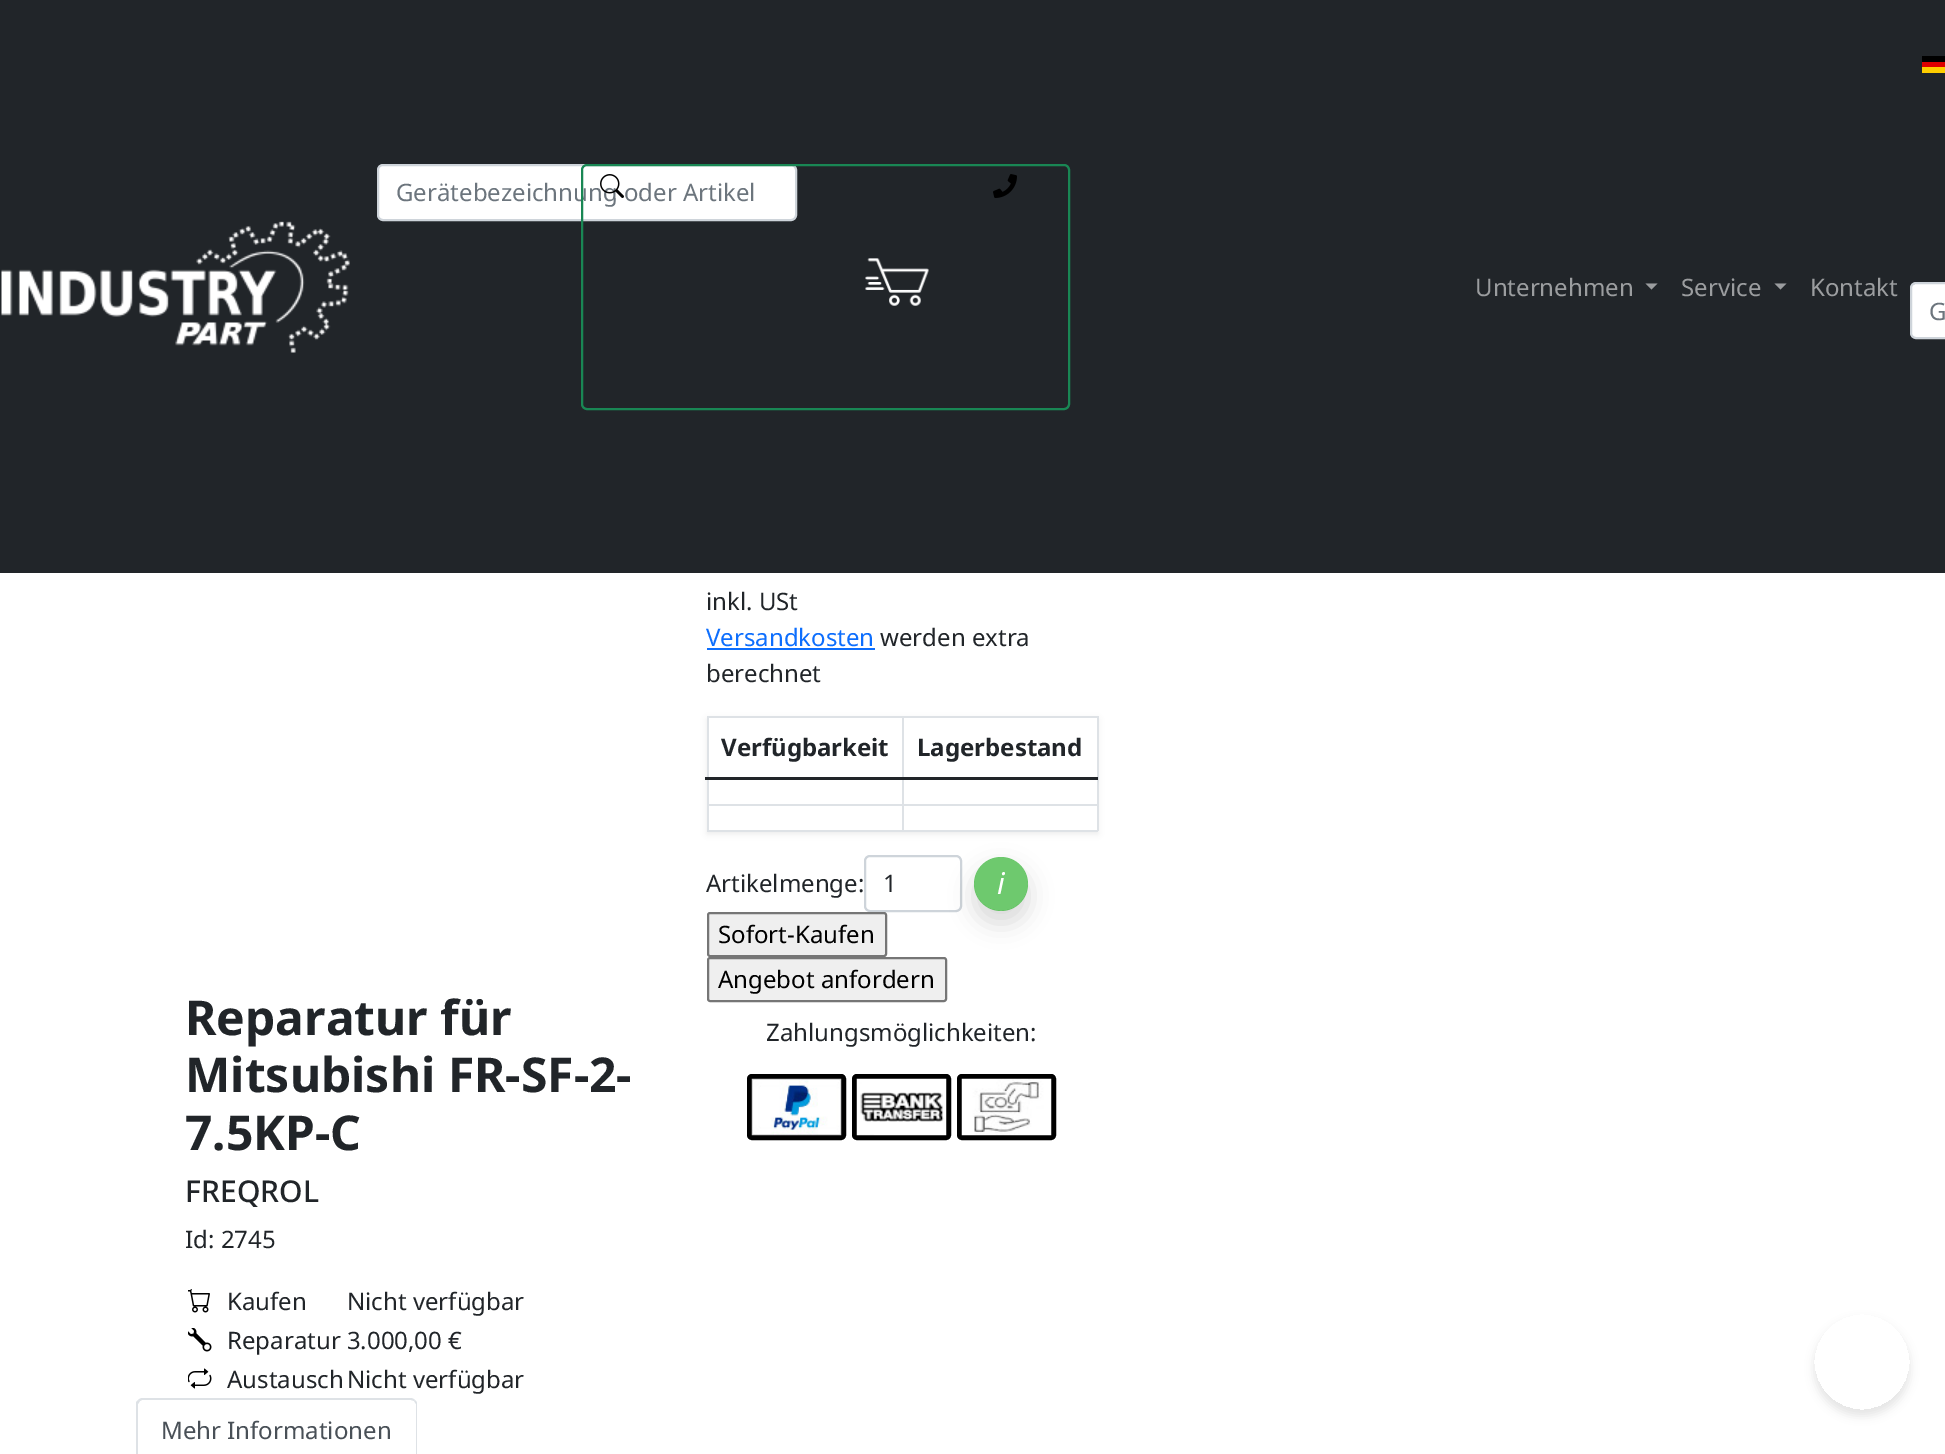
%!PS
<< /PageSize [1945 1454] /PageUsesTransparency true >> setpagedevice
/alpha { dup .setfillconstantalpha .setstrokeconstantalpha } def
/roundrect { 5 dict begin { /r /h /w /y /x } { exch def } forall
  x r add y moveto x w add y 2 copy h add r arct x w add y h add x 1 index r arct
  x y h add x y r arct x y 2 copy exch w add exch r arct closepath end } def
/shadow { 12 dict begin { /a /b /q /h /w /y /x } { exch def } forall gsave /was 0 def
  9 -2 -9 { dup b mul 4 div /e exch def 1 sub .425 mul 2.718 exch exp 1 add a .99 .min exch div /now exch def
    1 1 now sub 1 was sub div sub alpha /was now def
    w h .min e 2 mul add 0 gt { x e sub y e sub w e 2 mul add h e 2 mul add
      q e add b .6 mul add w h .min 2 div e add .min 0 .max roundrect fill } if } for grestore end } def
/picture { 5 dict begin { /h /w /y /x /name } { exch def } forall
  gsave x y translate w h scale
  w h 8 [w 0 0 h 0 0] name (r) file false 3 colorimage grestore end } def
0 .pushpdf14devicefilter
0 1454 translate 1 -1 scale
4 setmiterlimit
1 setgray
0 0 1945 1454 rectfill
0.129 0.145 0.161 setrgbcolor
0 0 1945 573 rectfill
1 setgray
378 165 418 55 5 roundrect gsave fill grestore
0.808 0.831 0.855 setrgbcolor
2 setlinewidth
stroke
/NotoSans-Regular [24 0 0 -24 0 0] selectfont
0.424 0.459 0.49 setrgbcolor
396 201 moveto (Gerätebezeichnung oder Artikel) show
0.098 0.529 0.329 setrgbcolor
582 165 487 244 5 roundrect stroke
(img1.rgb) 600 174 24 24 picture
(img2.rgb) 993 174 24 24 picture
(img3.rgb) 1 221 349 132 picture
(img4.rgb) 865 258 64 48 picture
0.608 0.616 0.624 setrgbcolor
1475 296 moveto (Unternehmen) show
newpath 1645.5 283.5 moveto 1657.5 283.5 lineto 1651.5 289.5 lineto closepath fill
1681 296 moveto (Service) show
newpath 1774.5 283.5 moveto 1786.5 283.5 lineto 1780.5 289.5 lineto closepath fill
1810 296 moveto (Kontakt) show
0 setgray
1922 56 23 6 rectfill
0.867 0 0 setrgbcolor
1922 62 23 5 rectfill
1 0.808 0 setrgbcolor
1922 67 23 6 rectfill
1 setgray
1911 284 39 54 5 roundrect fill
0.808 0.831 0.855 setrgbcolor
1911 283 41 55 5 roundrect stroke
0.424 0.459 0.49 setrgbcolor
1929 320 moveto (G) show
0.129 0.145 0.161 setrgbcolor
706 610 moveto (inkl. USt) show
0.051 0.431 0.992 setrgbcolor
706 646 moveto (Versandkosten) show
707 648 168 2 rectfill
0.129 0.145 0.161 setrgbcolor
880 646 moveto (werden extra) show
706 682 moveto (berechnet) show
gsave
newpath 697 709 moveto 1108 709 lineto 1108 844 lineto 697 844 lineto closepath 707 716 moveto 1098 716 lineto 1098 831 lineto 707 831 lineto closepath eoclip newpath
0 setgray
707 719 391 115 0 3 0.07 shadow
grestore
0.871 0.886 0.902 setrgbcolor
707 830 391 2 rectfill
707 804 391 2 rectfill
707 716 391 2 rectfill
707 716 2 115 rectfill
1097 716 2 115 rectfill
902 716 2 115 rectfill
0.129 0.145 0.161 setrgbcolor
705 777 393 3 rectfill
/NotoSans-Bold [24 0 0 -24 0 0] selectfont
721 756 moveto (Verfügbarkeit) show
917 756 moveto (Lagerbestand) show
/NotoSans-Regular [24 0 0 -24 0 0] selectfont
706 892 moveto (Artikelmenge:) show
0.808 0.831 0.855 setrgbcolor
865 856 96 55 5 roundrect stroke
0.129 0.145 0.161 setrgbcolor
883 892 moveto (1) show
0.937 setgray
708 958 238 43 2 roundrect gsave fill grestore
0.463 setgray
stroke
gsave
newpath 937 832 moveto 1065 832 lineto 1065 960 lineto 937 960 lineto closepath 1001 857 moveto 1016 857 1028 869 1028 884 curveto 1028 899 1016 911 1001 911 curveto 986 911 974 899 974 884 curveto 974 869 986 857 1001 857 curveto closepath eoclip newpath
0 setgray
974 869 54 54 27 12 0.15 shadow
grestore
0.77 alpha
0.259 0.725 0.259 setrgbcolor
newpath 1001 884 27 0 360 arc closepath fill
/NotoSans-Italic [30 0 0 -30 0 0] selectfont
1 alpha
1 setgray
997 894 moveto (ℹ) show
0.937 setgray
708 913 178 43 2 roundrect gsave fill grestore
0.463 setgray
stroke
/NotoSans-Regular [24 0 0 -24 0 0] selectfont
0 setgray
718 943 moveto (Sofort-Kaufen) show
718 988 moveto (Angebot anfordern) show
0.129 0.145 0.161 setrgbcolor
766 1041 moveto (Zahlungsmöglichkeiten:) show
0 setgray
5 setlinewidth
749.5 1076.5 94 61 2.5 roundrect stroke
854.5 1076.5 94 61 2.5 roundrect stroke
959.5 1076.5 94 61 2.5 roundrect stroke
(img5.rgb) 751 1078 91 58 picture
(img6.rgb) 856 1078 91 58 picture
(img7.rgb) 961 1078 91 58 picture
/NotoSans-Bold [48 0 0 -48 0 0] selectfont
0.129 0.145 0.161 setrgbcolor
185 1035 moveto (Reparatur für) show
185 1092 moveto (Mitsubishi FR-SF-2-) show
185 1150 moveto (7.5KP-C) show
/NotoSans-Medium [30 0 0 -30 0 0] selectfont
185 1202 moveto (FREQROL) show
/NotoSans-Regular [24 0 0 -24 0 0] selectfont
185 1248 moveto (Id: 2745) show
(img8.rgb) 188 1289 22 24 picture
227 1310 moveto (Kaufen) show
347 1310 moveto (Nicht verfügbar) show
(img9.rgb) 188 1328 24 24 picture
227 1349 moveto (Reparatur 3.000,00 €) show
(img10.rgb) 188 1368 24 21 picture
227 1388 moveto (Austausch) show
347 1388 moveto (Nicht verfügbar) show
0.871 0.886 0.902 setrgbcolor
newpath 142 1398 moveto 141 1398 139 1399 138 1400 curveto 140 1401 lineto 142 1400 lineto 411 1400 lineto 414 1401 lineto 415 1400 lineto 414 1399 412 1398 411 1398 curveto closepath fill
newpath 417 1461 moveto 417 1404 lineto 417 1402 416 1401 415 1400 curveto 414 1401 lineto 416 1404 lineto 416 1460 lineto closepath fill
newpath 136 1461 moveto 136 1402 lineto 138 1400 lineto 140 1401 lineto 138 1404 lineto 138 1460 lineto closepath fill
0.286 0.314 0.341 setrgbcolor
161 1439 moveto (Mehr Informationen) show
gsave
newpath 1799 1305 moveto 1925 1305 lineto 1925 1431 lineto 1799 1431 lineto closepath 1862 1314 moveto 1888.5 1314 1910 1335.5 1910 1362 curveto 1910 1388.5 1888.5 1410 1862 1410 curveto 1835.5 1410 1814 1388.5 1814 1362 curveto 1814 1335.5 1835.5 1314 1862 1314 curveto closepath eoclip newpath
0 setgray
1814 1320 96 96 48 4.5 0.1 shadow
grestore
.poppdf14devicefilter showpage
